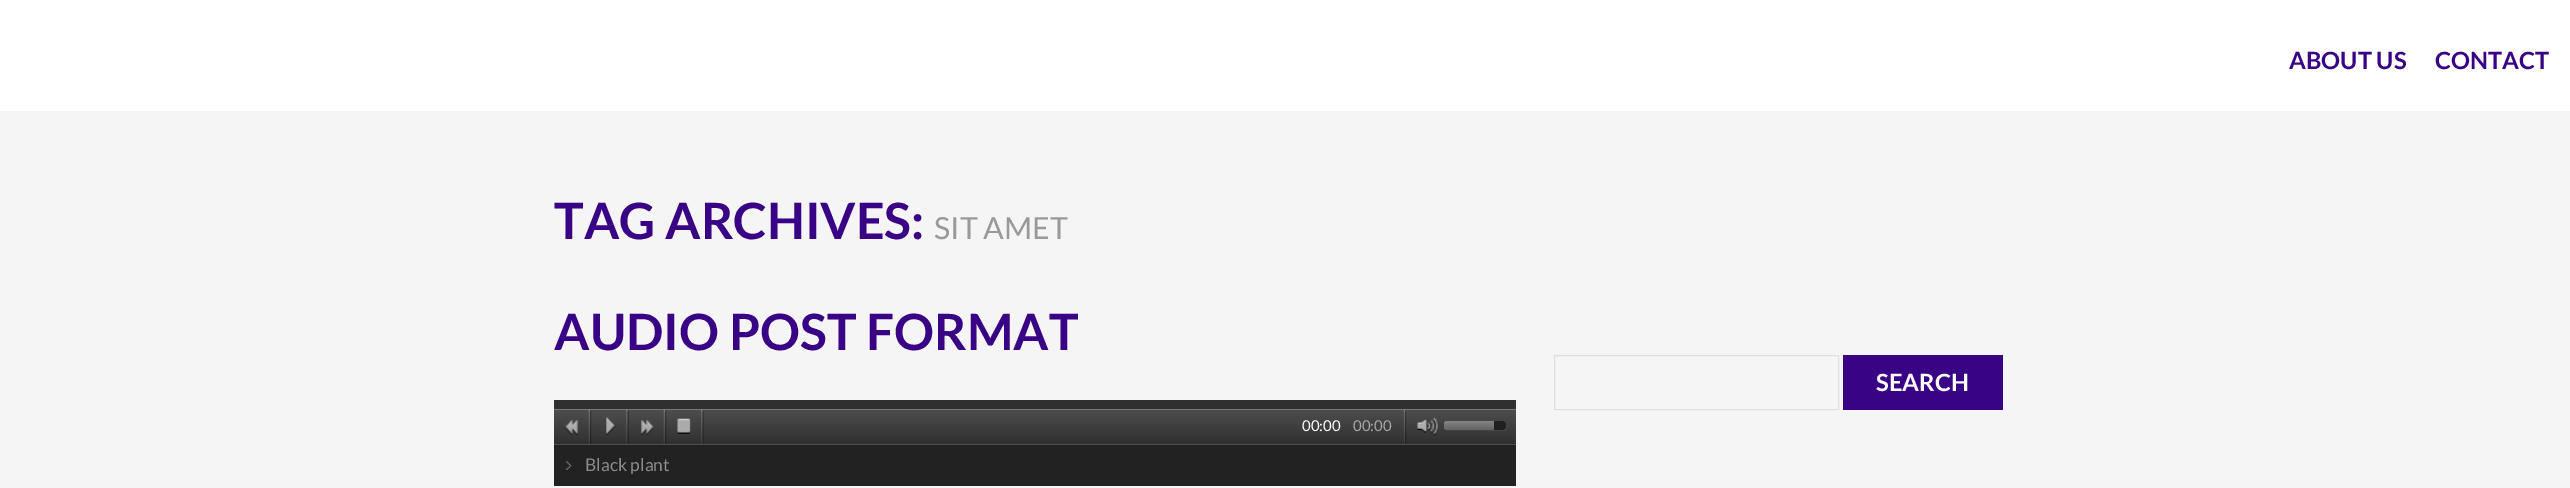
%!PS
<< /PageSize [2570 488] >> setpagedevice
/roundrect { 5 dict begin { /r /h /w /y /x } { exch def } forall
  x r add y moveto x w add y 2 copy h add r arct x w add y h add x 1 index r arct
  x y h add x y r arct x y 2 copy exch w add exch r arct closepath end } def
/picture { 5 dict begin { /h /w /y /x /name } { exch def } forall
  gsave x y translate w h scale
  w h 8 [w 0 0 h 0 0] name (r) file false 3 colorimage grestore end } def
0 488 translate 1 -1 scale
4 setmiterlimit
0.961 setgray
0 0 2570 488 rectfill
1 setgray
0 0 2570 111 rectfill
/Lato-Bold [23.75 0 0 -23.75 0 0] selectfont
0.224 0.012 0.522 setrgbcolor
2289 69 moveto (ABOUT US) show
2435 69 moveto (CONTACT) show
/Lato-Bold [50 0 0 -50 0 0] selectfont
554 239 moveto (TAG ARCHIVES:) show
/Lato-Regular [30.5 0 0 -30.5 0 0] selectfont
0.6 setgray
934 239 moveto (SIT AMET) show
/Lato-Bold [50 0 0 -50 0 0] selectfont
0.224 0.012 0.522 setrgbcolor
554 350 moveto (AUDIO POST FORMAT) show
gsave newpath 554 410 moveto 1516 410 lineto 1516 444 lineto 554 444 lineto closepath clip newpath
<< /ShadingType 2 /ColorSpace /DeviceRGB /Coords [1035 400 1035 444] /Extend [true true] /Function << /FunctionType 2 /Domain [0 1] /C0 [0.341 0.337 0.337] /C1 [0.192 0.188 0.188] /N 1 >> >> shfill grestore
0.306 setgray
554 444 962 1 rectfill
0.188 setgray
554 400 962 9 rectfill
0.467 setgray
554 409 962 1 rectfill
(img1.rgb) 588 410 4 34 picture
(img2.rgb) 565 420 13 15 picture
(img3.rgb) 626 410 3 34 picture
(img4.rgb) 606 417 9 18 picture
(img1.rgb) 663 410 4 34 picture
(img5.rgb) 641 420 13 15 picture
(img6.rgb) 701 410 3 34 picture
(img7.rgb) 677 418 14 16 picture
(img8.rgb) 1403 410 4 34 picture
(img9.rgb) 1417 417 21 19 picture
0.275 0.267 0.267 setrgbcolor
newpath 1446 430 moveto 1448 431 lineto 1504 431 lineto 1508 431 1509 425 1506 423 curveto 1510 432 1497 430 1493 430 curveto closepath fill
0.125 setgray
1444 421 62 9 4 roundrect fill
gsave newpath 1448 421 moveto 1494 421 lineto 1494 430 lineto 1448 430 lineto 1446 430 1444 428 1444 426 curveto 1444 425 lineto 1444 423 1446 421 1448 421 curveto closepath clip newpath
<< /ShadingType 2 /ColorSpace /DeviceRGB /Coords [1469 421 1469 430] /Extend [true true] /Function << /FunctionType 2 /Domain [0 1] /C0 [0.518 0.518 0.518] /C1 [0.392 0.392 0.392] /N 1 >> >> shfill grestore
/Lato-Regular [15 0 0 -15 0 0] selectfont
1 setgray
1302 431 moveto (00:00) show
0.655 setgray
1353 431 moveto (00:00) show
0.133 setgray
554 445 962 41 rectfill
(img10.rgb) 566 461 6 9 picture
/Lato-Regular [17.5 0 0 -17.5 0 0] selectfont
0.549 setgray
585 471 moveto (Black plant) show
0.882 0.878 0.878 setrgbcolor
1554.5 355.5 284 54 rectstroke
0.224 0.012 0.522 setrgbcolor
1843 355 160 55 rectfill
/Lato-Bold [23.75 0 0 -23.75 0 0] selectfont
1 setgray
1876 391 moveto (SEARCH) show
showpage
